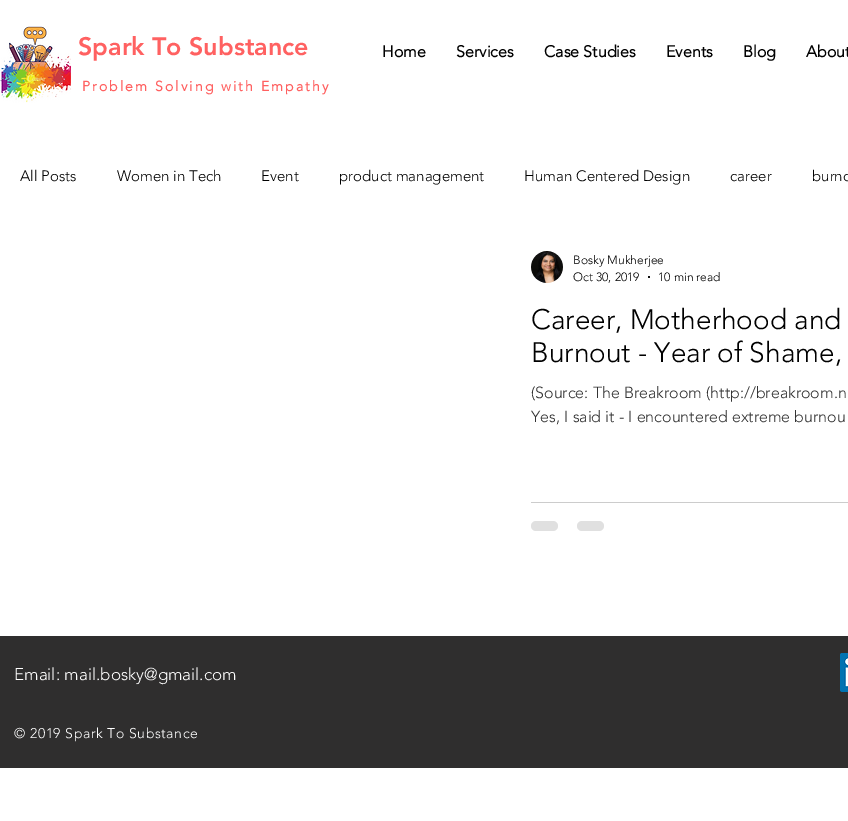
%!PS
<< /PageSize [848 821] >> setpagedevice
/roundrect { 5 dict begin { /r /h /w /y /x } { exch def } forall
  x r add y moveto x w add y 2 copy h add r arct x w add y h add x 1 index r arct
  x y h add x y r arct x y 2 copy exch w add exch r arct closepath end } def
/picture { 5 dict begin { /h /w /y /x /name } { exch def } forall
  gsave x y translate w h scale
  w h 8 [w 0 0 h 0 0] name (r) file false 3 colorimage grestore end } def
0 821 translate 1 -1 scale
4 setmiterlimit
1 setgray
0 0 848 821 rectfill
(img1.rgb) 0 26 71 77 picture
/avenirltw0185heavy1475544-Black [25 0 0 -25 0 0] selectfont
1 0.38 0.38 setrgbcolor
78 55 moveto (Spark To Substance) show
/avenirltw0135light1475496-Bold [16 0 0 -16 0 0] selectfont
0 setgray
382 57 moveto (Home) show
456 57 moveto (Services) show
544 57 moveto (Case Studies) show
666 57 moveto (Events) show
743 57 moveto (Blog) show
806 57 moveto (About) show
/avenirltw0135light1475496-Bold [14 0 0 -14 0 0] selectfont
1 0.38 0.38 setrgbcolor
82 91 moveto 2.1 0 (Problem Solving with Empathy) ashow
/avenirltw0135light1475496-Light [15 0 0 -15 0 0] selectfont
0 setgray
20 181 moveto (All Posts) show
117 181 moveto (Women in Tech) show
261 181 moveto (Event) show
339 181 moveto (product management) show
524 181 moveto (Human Centered Design) show
730 181 moveto (career) show
812 181 moveto (burno) show
(img2.rgb) 531 251 32 32 picture
/avenirltw0135light1475496-Light [12 0 0 -12 0 0] selectfont
573 264 moveto (Bosky Mukherjee) show
573 281 moveto (Oct 30, 2019) show
newpath 649 277 1 0 360 arc closepath fill
658 281 moveto (10 min read) show
/avenirltw0135light1475496-Light [28 0 0 -28 0 0] selectfont
531 329 moveto (Career, Motherhood and) show
531 362 moveto (Burnout - Year of Shame,) show
/avenirltw0135light1475496-Light [16 0 0 -16 0 0] selectfont
0.2 setgray
531 398 moveto (\(Source: The Breakroom \(http://breakroom.n) show
531 422 moveto (Yes, I said it - I encountered extreme burnou) show
0.8 setgray
531 502 317 1 rectfill
0.878 setgray
531 521 27 10 5 roundrect fill
577 521 27 10 5 roundrect fill
0.184 0.18 0.18 setrgbcolor
0 636 848 132 rectfill
/avenirltw0135light1475496-Light [17 0 0 -17 0 0] selectfont
1 setgray
14 680 moveto (Email: mail.bosky@gmail.com) show
(img3.rgb) 840 653 8 39 picture
/avenirltw0135light1475496-Light [14 0 0 -14 0 0] selectfont
14 738 moveto 0.55 0 (© 2019 Spark To Substance) ashow
showpage
